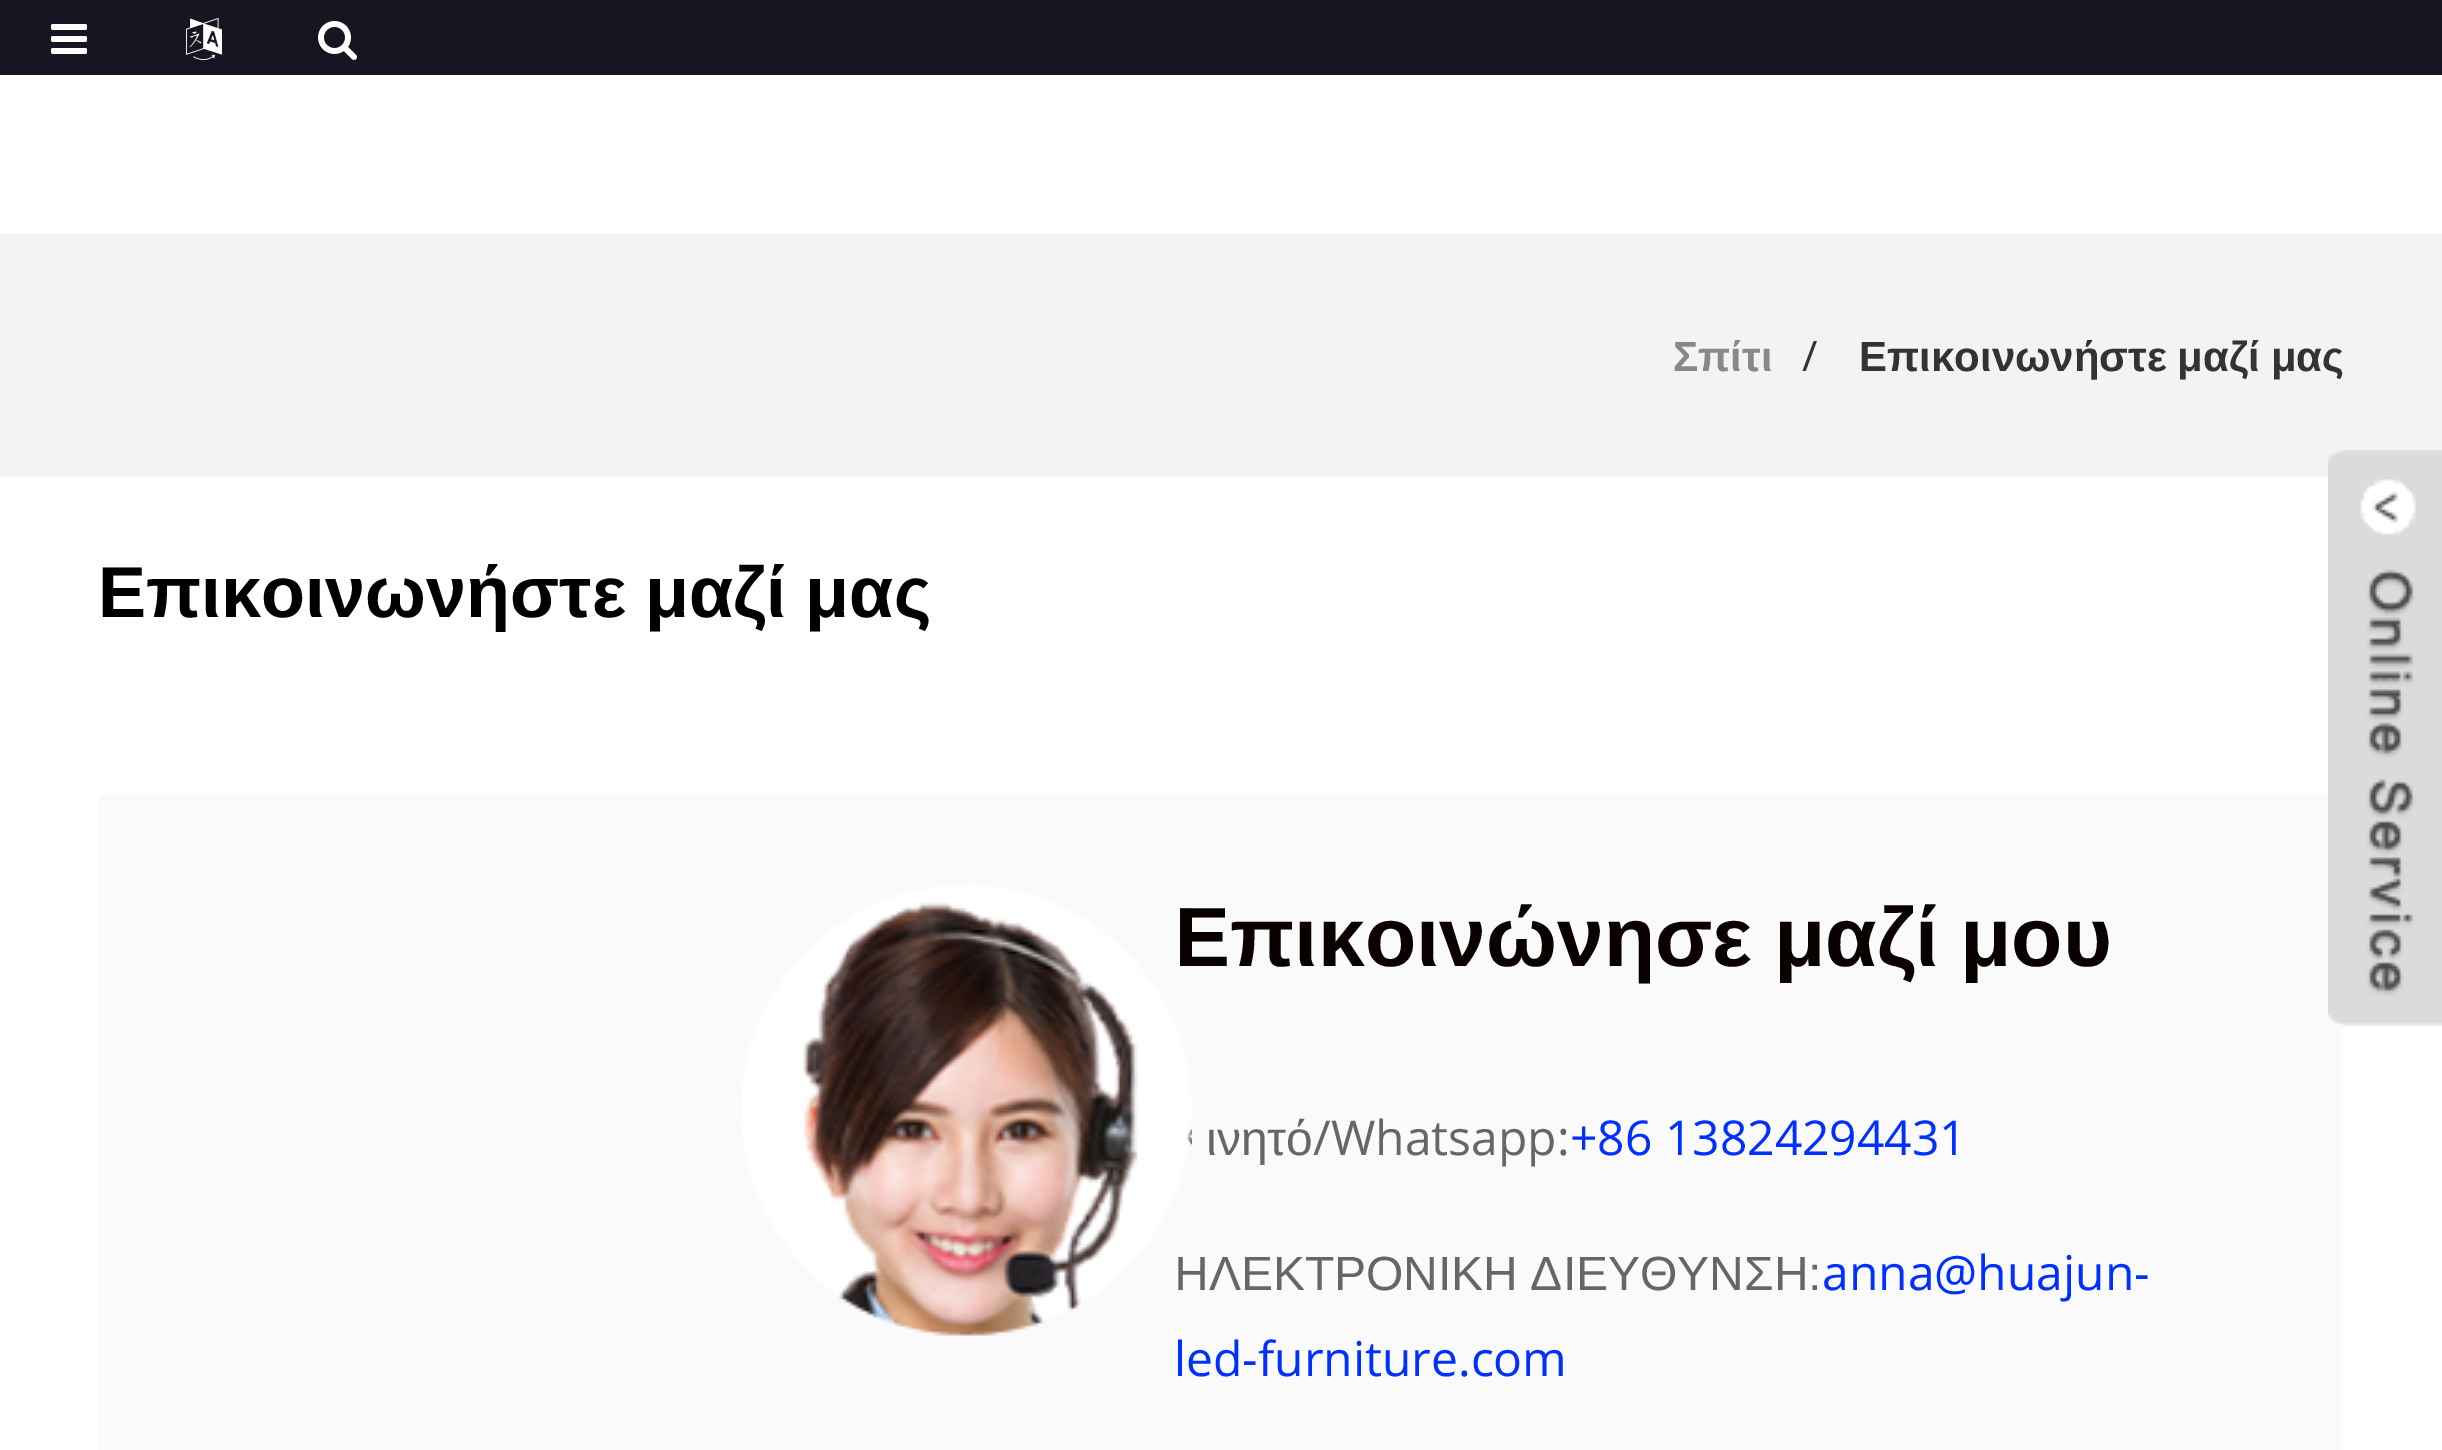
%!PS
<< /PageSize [2442 1450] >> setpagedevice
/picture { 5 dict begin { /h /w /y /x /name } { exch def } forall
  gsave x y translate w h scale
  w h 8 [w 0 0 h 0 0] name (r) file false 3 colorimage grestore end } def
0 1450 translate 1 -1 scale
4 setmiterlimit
1 setgray
0 0 2442 1450 rectfill
0.086 0.086 0.133 setrgbcolor
0 0 2442 75 rectfill
(img1.rgb) 51 24 36 30 picture
(img2.rgb) 186 18 36 42 picture
(img3.rgb) 318 21 39 39 picture
0.953 setgray
0 234 2442 243 rectfill
/LiberationSans-Bold [42 0 0 -42 0 0] selectfont
0.533 setgray
1673 371 moveto (Σπίτι) show
/OpenSans-Regular [42 0 0 -42 0 0] selectfont
0.2 setgray
1802 371 moveto (/) show
/LiberationSans-Bold [42 0 0 -42 0 0] selectfont
1859 371 moveto -1 0 32 (Επικοινωνήστε μαζί μας) widthshow
/LiberationSans-Bold [72 0 0 -72 0 0] selectfont
0 setgray
98 617 moveto -1 0 32 (Επικοινωνήστε μαζί μας) widthshow
0.98 setgray
99 795 2244 655 rectfill
/LiberationSans-Bold [84 0 0 -84 0 0] selectfont
0.039 0 0 setrgbcolor
1174 966 moveto -2 0 32 (Επικοινώνησε μαζί μου) widthshow
/LiberationSans-Regular [48 0 0 -48 0 0] selectfont
0.4 setgray
1174 1290 moveto -1 0 32 (ΗΛΕΚΤΡΟΝΙΚΗ ΔΙΕΥΘΥΝΣΗ:) widthshow
(img4.rgb) 741 885 451 451 picture
1206 1155 moveto (ινητό) show
/OpenSans-Regular [48 0 0 -48 0 0] selectfont
1313 1155 moveto (/Whatsapp:) show
0 0.188 1 setrgbcolor
1570 1155 moveto (+86 13824294431) show
1822 1290 moveto (anna@huajun-) show
1174 1376 moveto (led-furniture.com) show
(img5.rgb) 2328 450 114 576 picture
showpage
